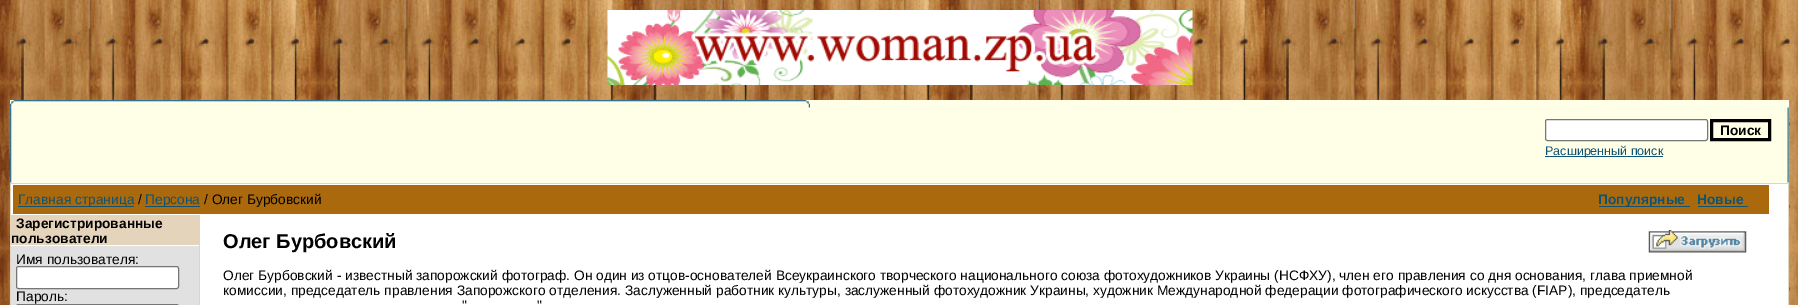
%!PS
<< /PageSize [1798 305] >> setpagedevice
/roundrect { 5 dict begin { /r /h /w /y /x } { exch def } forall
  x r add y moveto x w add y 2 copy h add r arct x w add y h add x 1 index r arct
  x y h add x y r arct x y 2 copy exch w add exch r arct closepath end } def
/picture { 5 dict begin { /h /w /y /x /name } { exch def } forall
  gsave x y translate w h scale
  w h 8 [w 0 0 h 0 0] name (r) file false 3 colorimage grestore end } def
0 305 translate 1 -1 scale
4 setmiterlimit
1 setgray
0 0 1798 305 rectfill
(img1.rgb) 0 0 1798 305 picture
(img2.rgb) 607 10 586 75 picture
1 1 0.91 setrgbcolor
10 100 1779 83 rectfill
(img3.rgb) 10 100 800 8 picture
(img4.rgb) 10 107 2 76 picture
1 setgray
1545.5 119.5 162 21 2 roundrect gsave fill grestore
0.463 setgray
stroke
0 setgray
3 setlinewidth
1711.5 120.5 58 19 rectstroke
/LiberationSans-Bold [13.75 0 0 -13.75 0 0] selectfont
1720 135 moveto (Поиск) show
0.059 0.329 0.459 setrgbcolor
1545 156 118 1 rectfill
/LiberationSans-Regular [12.5 0 0 -12.5 0 0] selectfont
1545 155 moveto (Расширенный поиск) show
(img5.rgb) 1787 107 2 76 picture
0.894 0.831 0.737 setrgbcolor
10 183 1779 122 rectfill
1 setgray
11 184 1777 121 rectfill
0.671 0.412 0.051 setrgbcolor
13 185 1756 29 rectfill
0.059 0.329 0.459 setrgbcolor
18 206 116 1 rectfill
/LiberationSans-Regular [13.75 0 0 -13.75 0 0] selectfont
18 204 moveto (Главная страница) show
0 setgray
138 204 moveto (/) show
0.059 0.329 0.459 setrgbcolor
145 206 55 1 rectfill
145 204 moveto (Персона) show
0 setgray
204 204 moveto (/ Олег Бурбовский) show
0.059 0.329 0.459 setrgbcolor
1599 206 91 1 rectfill
/LiberationSans-Bold [13.75 0 0 -13.75 0 0] selectfont
1598 204 moveto (Популярные) show
1697 204 moveto (Новые) show
1698 206 50 1 rectfill
0.894 0.831 0.737 setrgbcolor
11 215 188 30 rectfill
0 setgray
16 228 moveto (Зарегистрированные) show
11 243 moveto (пользователи) show
0.882 setgray
11 246 188 59 rectfill
/LiberationSans-Regular [13.75 0 0 -13.75 0 0] selectfont
0 setgray
16 264 moveto (Имя пользователя:) show
1 setgray
16.5 266.5 162 22 2 roundrect gsave fill grestore
0.463 setgray
1 setlinewidth
stroke
0 setgray
16 301 moveto (Пароль:) show
0.463 setgray
16.5 304.5 162 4 2 roundrect stroke
0.894 0.831 0.737 setrgbcolor
199 215 1 90 rectfill
/LiberationSans-Bold [20 0 0 -20 0 0] selectfont
0 setgray
223 248 moveto (Олег Бурбовский) show
(img6.rgb) 1648 230 99 23 picture
/LiberationSans-Regular [13.75 0 0 -13.75 0 0] selectfont
223 280 moveto (Олег Бурбовский - известный запорожский фотограф. Он один из отцов-основателей Всеукраинского творческого национального союза фотохудожников Украины \(НСФХУ\), член его правления со дня основания, глава приемной) show
223 295 moveto (комиссии, председатель правления Запорожского отделения. Заслуженный работник культуры, заслуженный фотохудожник Украины, художник Международной федерации фотографического искусства \(FIAP\), председатель) show
462 310 moveto (") show
537 310 moveto (") show
showpage
